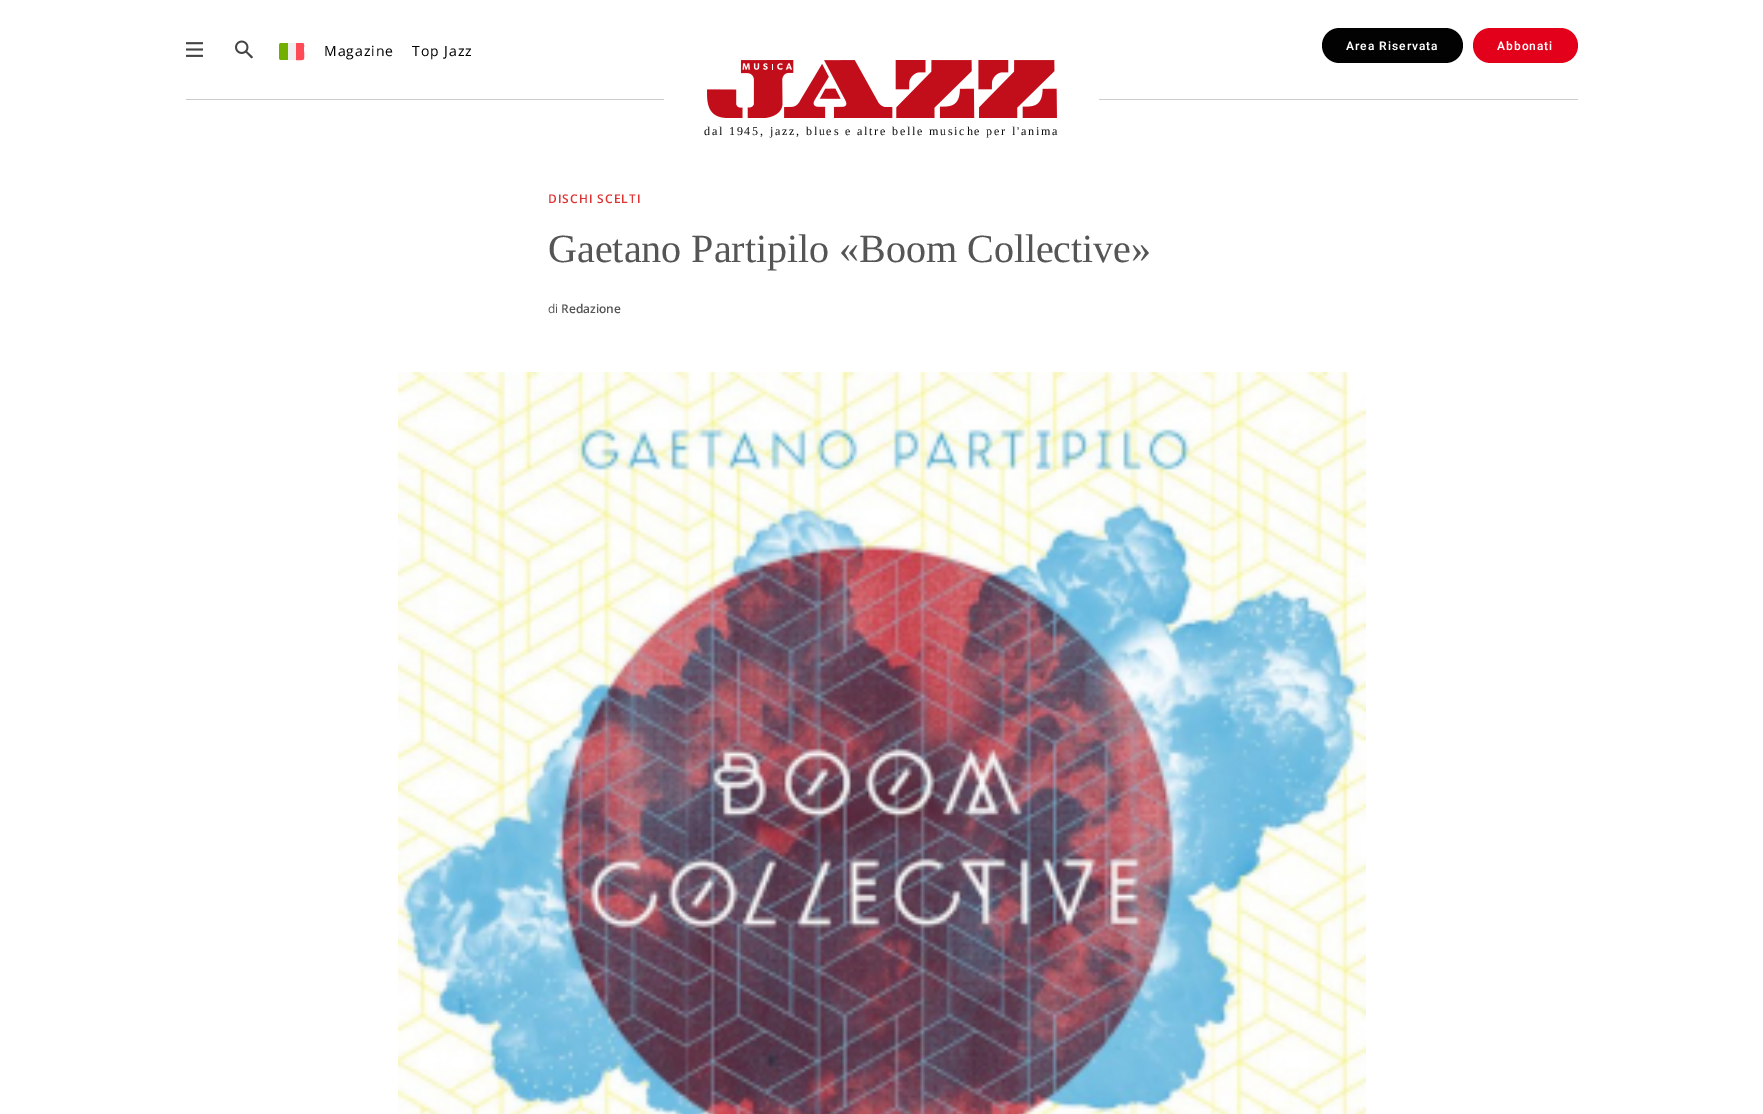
%!PS
<< /PageSize [1763 1114] >> setpagedevice
/roundrect { 5 dict begin { /r /h /w /y /x } { exch def } forall
  x r add y moveto x w add y 2 copy h add r arct x w add y h add x 1 index r arct
  x y h add x y r arct x y 2 copy exch w add exch r arct closepath end } def
/picture { 5 dict begin { /h /w /y /x /name } { exch def } forall
  gsave x y translate w h scale
  w h 8 [w 0 0 h 0 0] name (r) file false 3 colorimage grestore end } def
0 1114 translate 1 -1 scale
4 setmiterlimit
1 setgray
0 0 1763 1114 rectfill
0.8 setgray
186 99 1392 1 rectfill
(img1.rgb) 186 42 17 15 picture
(img2.rgb) 235 40 18 19 picture
0.941 setgray
newpath 303 43 moveto 280 43 lineto 279.5 43.5 279 44 279 45 curveto 279 58 lineto 279 59 279.5 59.5 280 60 curveto 303 60 lineto 303.5 59.5 304 59 304 58 curveto 304 45 lineto 304 44 303.5 43.5 303 43 curveto closepath fill
gsave
279 43 25 17 rectclip
0.451 0.686 0 setrgbcolor
newpath 288 43 moveto 278 43 279 41.5 279 51.5 curveto 279 61.5 278 60 288 60 curveto closepath fill
grestore
1 0.294 0.333 setrgbcolor
newpath 303 43 moveto 296 43 lineto 296 60 lineto 305.5 60 304 61 304 51.5 curveto 304 47 lineto 304 46 304.5 44 303 43 curveto closepath fill
/OpenSans-Regular [14 0 0 -14 0 0] selectfont
0 setgray
324 56 moveto 1 0 (Magazine) ashow
412 56 moveto 1 0 (Top Jazz) ashow
0.008 setgray
1322 28 141 35 17.5 roundrect fill
/Roboto-SemiBold [12 0 0 -12 0 0] selectfont
1 setgray
1346 50 moveto 1 0 (Area Riservata) ashow
0.886 0 0.102 setrgbcolor
1473 28 105 35 17.5 roundrect fill
1 setgray
1497 50 moveto 1 0 (Abbonati) ashow
664 99 435 1 rectfill
(img3.rgb) 707 60 350 58 picture
/LiberationSerif-Regular [12 0 0 -12 0 0] selectfont
0.039 setgray
704 135 moveto 1.8 0 (dal 1945, jazz, blues e altre belle musiche per l'anima) ashow
/OpenSans-SemiBold [12 0 0 -12 0 0] selectfont
0.867 0.2 0.2 setrgbcolor
548 203 moveto 1 0 (DISCHI SCELTI) ashow
/LiberationSerif-Regular [40 0 0 -40 0 0] selectfont
0.333 setgray
548 262 moveto (Gaetano Partipilo «Boom Collective») show
/OpenSans-Regular [12 0 0 -12 0 0] selectfont
548 313 moveto (di) show
/OpenSans-SemiBold [12 0 0 -12 0 0] selectfont
561 313 moveto (Redazione) show
(img4.rgb) 398 372 968 742 picture
showpage
